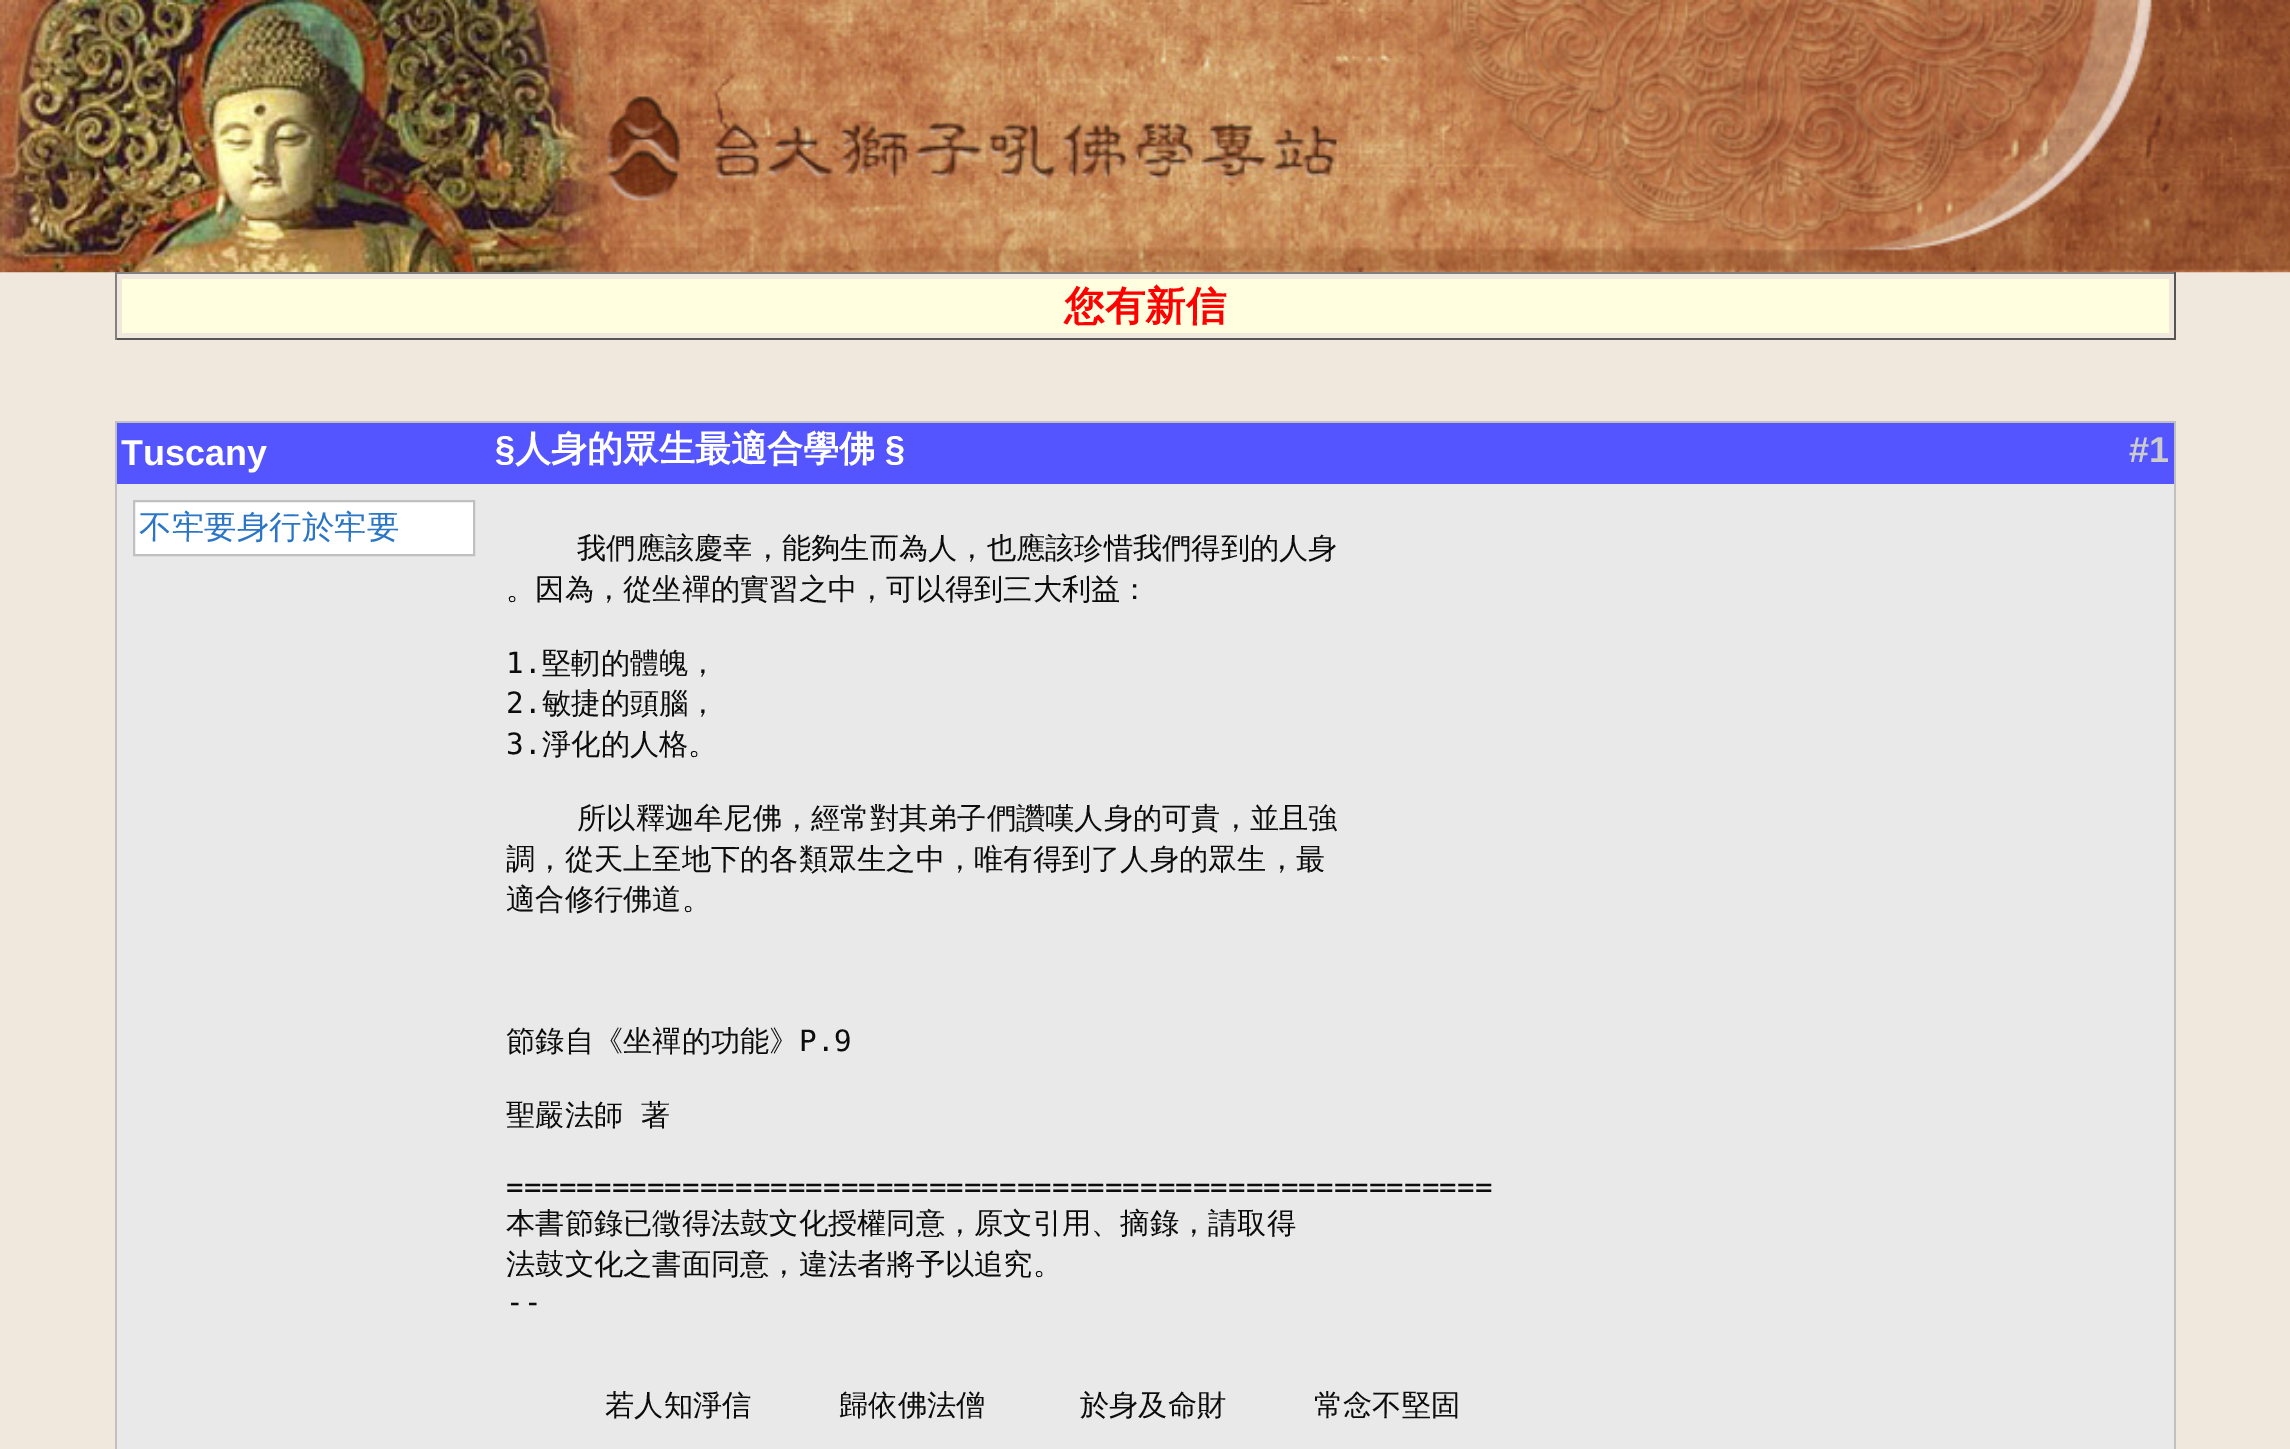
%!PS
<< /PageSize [2290 1449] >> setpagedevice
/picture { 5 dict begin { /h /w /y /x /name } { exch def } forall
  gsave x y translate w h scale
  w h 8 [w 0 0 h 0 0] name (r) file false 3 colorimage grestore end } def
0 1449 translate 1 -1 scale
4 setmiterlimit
0.941 0.91 0.867 setrgbcolor
0 0 2290 1449 rectfill
(img1.rgb) 0 0 2290 273 picture
0.502 setgray
115 272 2061 2 rectfill
0.333 setgray
2174 272 2 68 rectfill
115 338 2061 2 rectfill
0.502 setgray
115 272 2 68 rectfill
1 1 0.878 setrgbcolor
122 279 2047 54 rectfill
/WenQuanYiZenHei-Bold [40.5 0 0 -40.5 0 0] selectfont
1 0 0 setrgbcolor
1064 320 moveto (您有新信) show
0.753 setgray
115 421 2061 2 rectfill
2174 421 2 1028 rectfill
115 421 2 1028 rectfill
0.333 0.333 1 setrgbcolor
117 423 2057 61 rectfill
/LiberationSans-Bold [36 0 0 -36 0 0] selectfont
1 setgray
121 465 moveto (Tuscany) show
495 461 moveto (§) show
/WenQuanYiZenHei-Bold [36 0 0 -36 0 0] selectfont
515 461 moveto (人身的眾生最適合學佛) show
/LiberationSans-Bold [36 0 0 -36 0 0] selectfont
885 461 moveto (§) show
0.8 setgray
2129 462 moveto (#1) show
0.914 setgray
117 484 2057 965 rectfill
1 setgray
newpath 134 501 moveto 474 501 lineto 474 555 lineto 134 555 lineto closepath gsave fill grestore
0.753 setgray
2 setlinewidth
stroke
/WenQuanYiZenHei-Medium [32.5 0 0 -32.5 0 0] selectfont
0.165 0.459 0.773 setrgbcolor
139 538 moveto (不牢要身行於牢要) show
/WenQuanYiZenHei-Medium [29.25 0 0 -29.25 0 0] selectfont
0.047 setgray
577 558 moveto (我們應該慶幸，能夠生而為人，也應該珍惜我們得到的人身) show
506 599 moveto (。因為，從坐禪的實習之中，可以得到三大利益：) show
/DejaVuSansMono-Regular [29.25 0 0 -29.25 0 0] selectfont
506 673 moveto (1.) show
/WenQuanYiZenHei-Medium [29.25 0 0 -29.25 0 0] selectfont
542 673 moveto (堅軔的體魄，) show
/DejaVuSansMono-Regular [29.25 0 0 -29.25 0 0] selectfont
506 713 moveto (2.) show
/WenQuanYiZenHei-Medium [29.25 0 0 -29.25 0 0] selectfont
542 713 moveto (敏捷的頭腦，) show
/DejaVuSansMono-Regular [29.25 0 0 -29.25 0 0] selectfont
506 754 moveto (3.) show
/WenQuanYiZenHei-Medium [29.25 0 0 -29.25 0 0] selectfont
542 754 moveto (淨化的人格。) show
577 828 moveto (所以釋迦牟尼佛，經常對其弟子們讚嘆人身的可貴，並且強) show
506 869 moveto (調，從天上至地下的各類眾生之中，唯有得到了人身的眾生，最) show
506 909 moveto (適合修行佛道。) show
506 1051 moveto (節錄自《坐禪的功能》) show
/DejaVuSansMono-Regular [29.25 0 0 -29.25 0 0] selectfont
799 1051 moveto (P.9) show
/WenQuanYiZenHei-Medium [29.25 0 0 -29.25 0 0] selectfont
506 1125 moveto 9 0 32 (聖嚴法師 著) widthshow
/DejaVuSansMono-Regular [29.25 0 0 -29.25 0 0] selectfont
506 1197 moveto (========================================================) show
/WenQuanYiZenHei-Medium [29.25 0 0 -29.25 0 0] selectfont
506 1233 moveto (本書節錄已徵得法鼓文化授權同意，原文引用、摘錄，請取得) show
506 1274 moveto (法鼓文化之書面同意，違法者將予以追究。) show
/DejaVuSansMono-Regular [29.25 0 0 -29.25 0 0] selectfont
506 1312 moveto (--) show
/WenQuanYiZenHei-Medium [29.25 0 0 -29.25 0 0] selectfont
605 1415 moveto 7 0 32 (若人知淨信　　　歸依佛法僧      於身及命財　　　常念不堅固) widthshow
showpage
